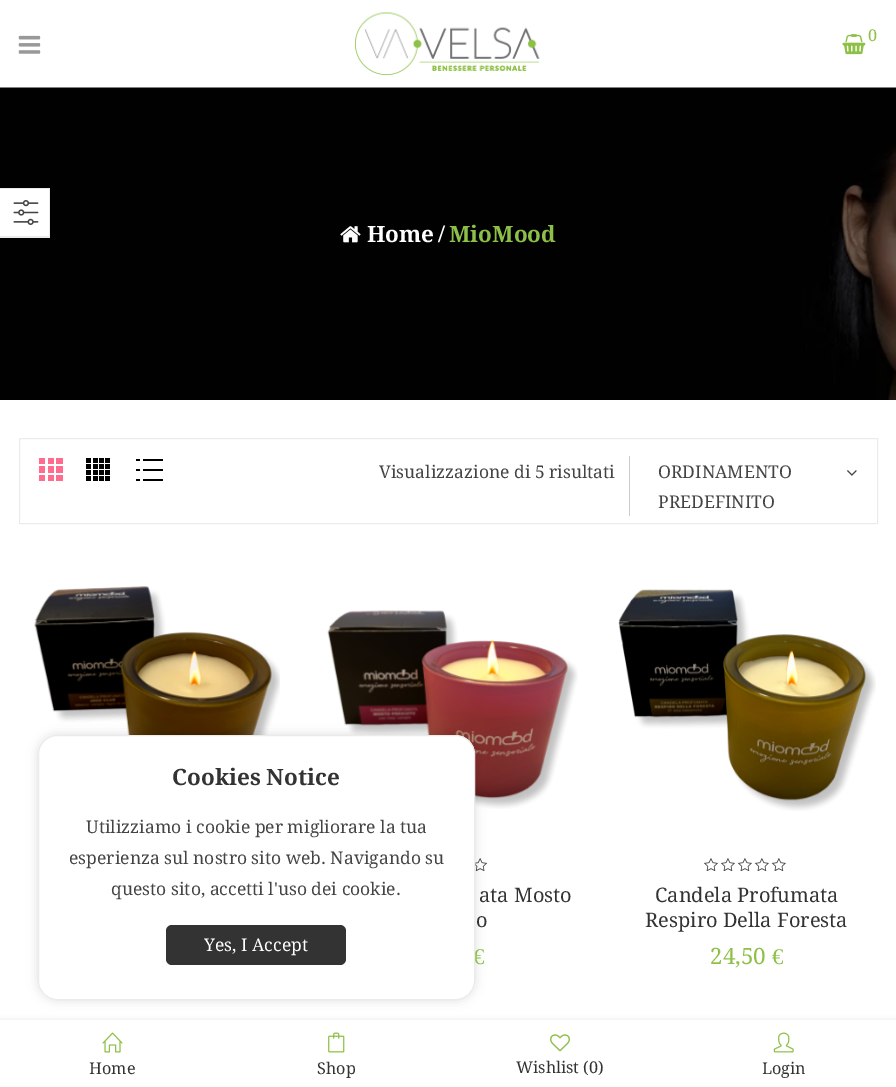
%!PS
<< /PageSize [896 1087] /PageUsesTransparency true >> setpagedevice
/alpha { dup .setfillconstantalpha .setstrokeconstantalpha } def
/roundrect { 5 dict begin { /r /h /w /y /x } { exch def } forall
  x r add y moveto x w add y 2 copy h add r arct x w add y h add x 1 index r arct
  x y h add x y r arct x y 2 copy exch w add exch r arct closepath end } def
/shadow { 12 dict begin { /a /b /q /h /w /y /x } { exch def } forall gsave /was 0 def
  9 -2 -9 { dup b mul 4 div /e exch def 1 sub .425 mul 2.718 exch exp 1 add a .99 .min exch div /now exch def
    1 1 now sub 1 was sub div sub alpha /was now def
    w h .min e 2 mul add 0 gt { x e sub y e sub w e 2 mul add h e 2 mul add
      q e add b .6 mul add w h .min 2 div e add .min 0 .max roundrect fill } if } for grestore end } def
/picture { 5 dict begin { /h /w /y /x /name } { exch def } forall
  gsave x y translate w h scale
  w h 8 [w 0 0 h 0 0] name (r) file false 3 colorimage grestore end } def
0 .pushpdf14devicefilter
0 1087 translate 1 -1 scale
4 setmiterlimit
1 setgray
0 0 896 1087 rectfill
(img10.rgb) 34 586 246 149 picture
(img11.rgb) 327 610 251 199 picture
(img12.rgb) 475 858 13 13 picture
0 setgray
38 735 437 265 19 5.5 0.14 shadow
/LiberationSerif-Regular [22.5 0 0 -22.5 0 0] selectfont
0.553 0.753 0.275 setrgbcolor
473 964 moveto (€) show
1 setgray
38.5 735.5 436 264 18.5 roundrect gsave fill grestore
0.922 setgray
stroke
/DroidSerif-Bold [22.5 0 0 -22.5 0 0] selectfont
0.2 setgray
172 785 moveto (Cookies Notice) show
/DroidSerif-Regular [17.5 0 0 -17.5 0 0] selectfont
0.267 setgray
86 833 moveto (Utilizziamo i cookie per migliorare la tua) show
69 864 moveto (esperienza sul nostro sito web. Navigando su) show
111 895 moveto (questo sito, accetti l'uso dei cookie.) show
0.2 setgray
166 925 180 40 6 roundrect fill
1 setgray
204 951 moveto (Yes, I Accept) show
(img1.rgb) 18 35 23 19 picture
(img2.rgb) 355 12 185 63 picture
(img3.rgb) 842 34 24 21 picture
/DroidSerif-Regular [16.25 0 0 -16.25 0 0] selectfont
0.553 0.753 0.275 setrgbcolor
868 41 moveto (0) show
(img4.rgb) 0 87 896 313 picture
(img5.rgb) 340 226 21 17 picture
/DroidSerif-Bold [22.5 0 0 -22.5 0 0] selectfont
1 setgray
367 242 moveto (Home) show
/LiberationSerif-Bold [25 0 0 -25 0 0] selectfont
438 242 moveto (/) show
/DroidSerif-Bold [22.5 0 0 -22.5 0 0] selectfont
0.553 0.753 0.275 setrgbcolor
449 242 moveto (MioMood) show
1 setgray
0 189 49 47 rectfill
0.922 setgray
49 188 1 50 rectfill
0 236 50 2 rectfill
0 188 50 1 rectfill
(img6.rgb) 13 200 26 25 picture
19.5 438.5 858 85 rectstroke
(img7.rgb) 39 458 24 23 picture
(img8.rgb) 86 458 24 23 picture
0 setgray
136 459 4 2 rectfill
143 459 20 2 rectfill
136 469 4 2 rectfill
143 469 20 2 rectfill
136 479 4 2 rectfill
143 479 20 2 rectfill
/DroidSerif-Regular [17.5 0 0 -17.5 0 0] selectfont
0.267 setgray
379 478 moveto (Visualizzazione di 5 risultati) show
0.8 setgray
629 456 1 60 rectfill
0.267 setgray
658 478 moveto (ORDINAMENTO) show
658 508 moveto (PREDEFINITO) show
(img9.rgb) 847 470 10 6 picture
/DroidSerif-Regular [20 0 0 -20 0 0] selectfont
0.2 setgray
479 902 moveto (ata Mosto) show
476 927 moveto (o) show
(img13.rgb) 618 589 258 222 picture
(img14.rgb) 704 858 82 13 picture
655 902 moveto (Candela Profumata) show
645 927 moveto (Respiro Della Foresta) show
/DroidSerif-Regular [22.5 0 0 -22.5 0 0] selectfont
0.553 0.753 0.275 setrgbcolor
710 964 moveto (24,50) show
/LiberationSerif-Regular [22.5 0 0 -22.5 0 0] selectfont
772 964 moveto (€) show
0.933 setgray
-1 1019 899 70 0 2.5 1 shadow
1 setgray
0 1020 896 67 rectfill
(img15.rgb) 102 1032 21 21 picture
/DroidSerif-Regular [16.25 0 0 -16.25 0 0] selectfont
0.2 setgray
89 1074 moveto (Home) show
(img16.rgb) 328 1032 17 21 picture
317 1074 moveto (Shop) show
(img17.rgb) 550 1034 20 18 picture
516 1073 moveto (Wishlist \(0\)) show
(img18.rgb) 773 1032 21 21 picture
762 1074 moveto (Login) show
.poppdf14devicefilter showpage
